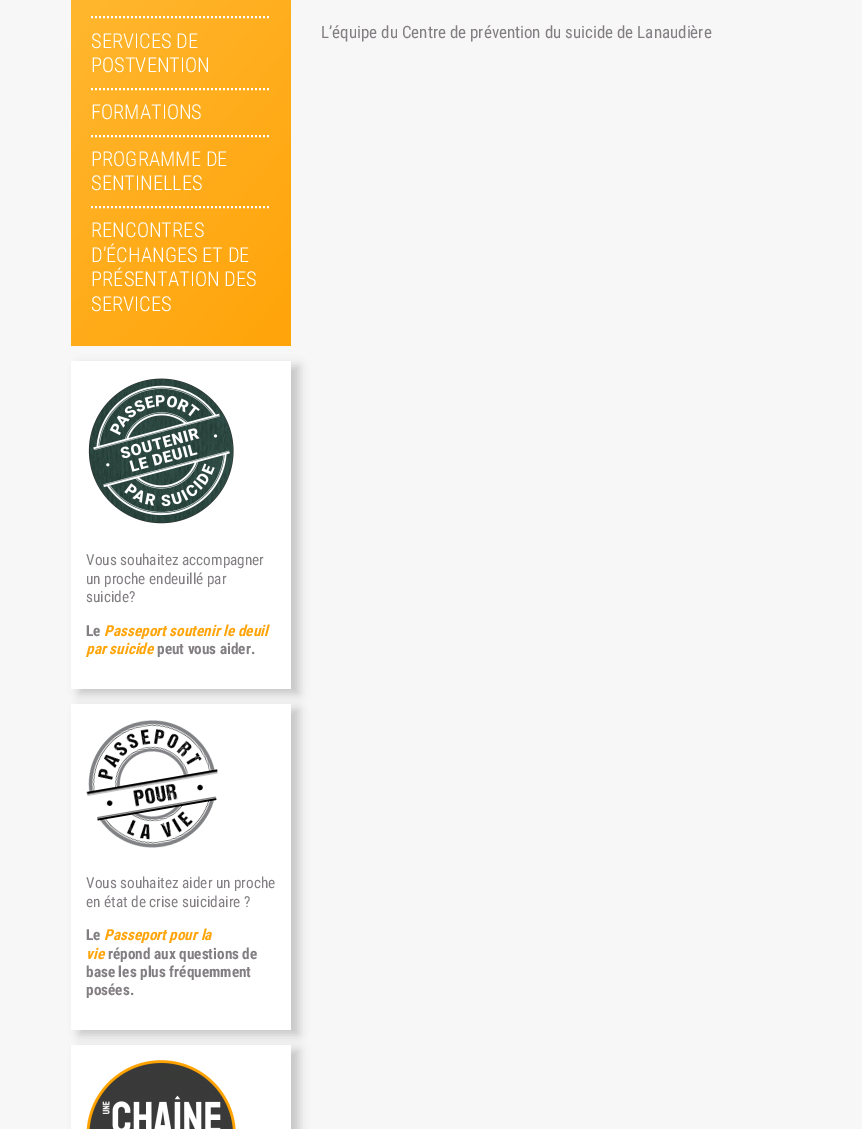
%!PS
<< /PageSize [862 1129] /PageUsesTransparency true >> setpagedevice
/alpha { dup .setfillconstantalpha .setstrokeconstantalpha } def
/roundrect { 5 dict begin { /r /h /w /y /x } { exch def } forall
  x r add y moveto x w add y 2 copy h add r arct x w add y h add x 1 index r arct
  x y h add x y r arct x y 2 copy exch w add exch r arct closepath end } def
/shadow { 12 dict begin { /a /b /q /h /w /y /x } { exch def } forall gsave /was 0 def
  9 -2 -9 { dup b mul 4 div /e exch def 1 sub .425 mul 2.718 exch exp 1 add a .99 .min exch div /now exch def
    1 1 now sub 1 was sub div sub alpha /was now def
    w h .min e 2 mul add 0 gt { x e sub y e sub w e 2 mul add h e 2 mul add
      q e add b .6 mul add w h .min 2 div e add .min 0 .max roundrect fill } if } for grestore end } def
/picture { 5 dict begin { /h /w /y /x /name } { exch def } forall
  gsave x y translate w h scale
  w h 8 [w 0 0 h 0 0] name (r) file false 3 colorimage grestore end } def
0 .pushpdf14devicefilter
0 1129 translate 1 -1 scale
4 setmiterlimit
0.969 setgray
0 0 862 1129 rectfill
gsave newpath 71 0 moveto 291 0 lineto 291 346 lineto 71 346 lineto closepath clip newpath
<< /ShadingType 2 /ColorSpace /DeviceRGB /Coords [-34 -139 396 221] /Extend [true true] /Function << /FunctionType 2 /Domain [0 1] /C0 [1 0.749 0.247] /C1 [1 0.643 0.035] /N 1 >> >> shfill grestore
1 setgray
2 setlinewidth
[2 2] 0 setdash
newpath 91 17 moveto 271 17 lineto stroke
newpath 91 89 moveto 271 89 lineto stroke
/RobotoCondensed-Light [20.5 0 0 -20.5 0 0] selectfont
91 48 moveto (SERVICES DE) show
91 72 moveto (POSTVENTION) show
newpath 91 136 moveto 271 136 lineto stroke
91 119 moveto (FORMATIONS) show
newpath 91 207 moveto 271 207 lineto stroke
91 166 moveto (PROGRAMME DE) show
91 190 moveto (SENTINELLES) show
91 237 moveto (RENCONTRES) show
91 262 moveto (D’ÉCHANGES ET DE) show
91 286 moveto (PRÉSENTATION DES) show
91 311 moveto (SERVICES) show
0 setgray
79 366 220 328 0 5 0.2 shadow
1 setgray
71 361 220 328 rectfill
(img1.rgb) 88 378 146 146 picture
/RobotoCondensed-Regular [15.25 0 0 -15.25 0 0] selectfont
0.51 0.494 0.51 setrgbcolor
86 565 moveto (Vous souhaitez accompagner) show
86 584 moveto (un proche endeuillé par) show
86 602 moveto (suicide?) show
/RobotoCondensed-Bold [15.25 0 0 -15.25 0 0] selectfont
86 636 moveto (Le) show
/RobotoCondensed-BoldItalic [15.25 0 0 -15.25 0 0] selectfont
1 0.643 0.035 setrgbcolor
104 636 moveto (Passeport soutenir le deuil) show
86 654 moveto (par suicide) show
/RobotoCondensed-Bold [15.25 0 0 -15.25 0 0] selectfont
0.51 0.494 0.51 setrgbcolor
157 654 moveto (peut vous aider.) show
0 setgray
79 709 220 326 0 5 0.2 shadow
1 setgray
71 704 220 326 rectfill
(img2.rgb) 86 720 132 128 picture
/RobotoCondensed-Regular [15.25 0 0 -15.25 0 0] selectfont
0.51 0.494 0.51 setrgbcolor
86 888 moveto (Vous souhaitez aider un proche) show
86 907 moveto (en état de crise suicidaire ?) show
/RobotoCondensed-Bold [15.25 0 0 -15.25 0 0] selectfont
86 940 moveto (Le) show
/RobotoCondensed-BoldItalic [15.25 0 0 -15.25 0 0] selectfont
1 0.643 0.035 setrgbcolor
104 940 moveto (Passeport pour la) show
86 959 moveto (vie) show
/RobotoCondensed-Bold [15.25 0 0 -15.25 0 0] selectfont
0.51 0.494 0.51 setrgbcolor
108 959 moveto (répond aux questions de) show
86 977 moveto (base les plus fréquemment) show
86 995 moveto (posées.) show
0 setgray
79 1050 220 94 0 5 0.2 shadow
1 setgray
71 1045 220 84 rectfill
(img3.rgb) 86 1060 150 69 picture
/RobotoCondensed-Regular [17 0 0 -17 0 0] selectfont
0.51 0.494 0.51 setrgbcolor
321 38 moveto (L’équipe du Centre de prévention du suicide de Lanaudière) show
.poppdf14devicefilter showpage
